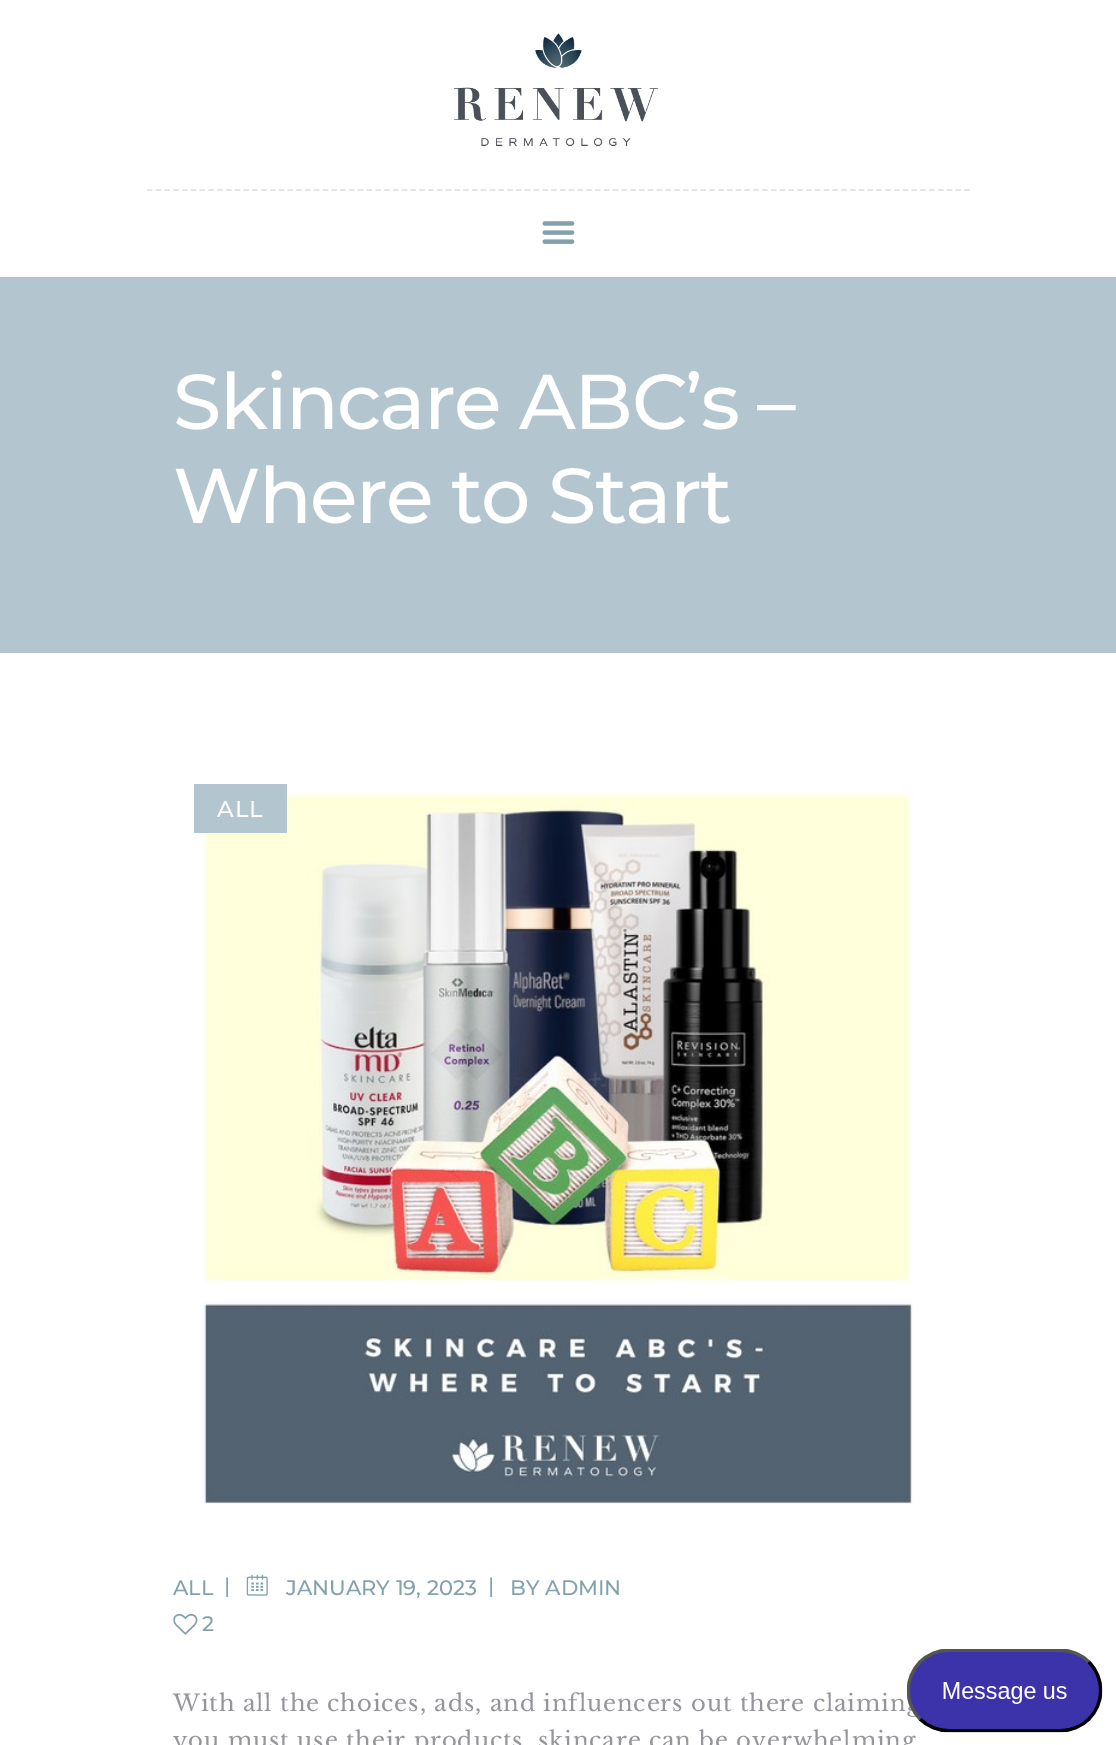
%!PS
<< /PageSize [1116 1745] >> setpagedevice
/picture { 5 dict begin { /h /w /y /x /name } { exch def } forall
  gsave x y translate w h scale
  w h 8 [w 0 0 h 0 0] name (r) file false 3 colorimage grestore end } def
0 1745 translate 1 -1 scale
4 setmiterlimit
1 setgray
0 0 1116 1745 rectfill
0.898 setgray
1.8 setlinewidth
[5.25 3.54] 0 setdash
newpath 147 190 moveto 969.5 190 lineto stroke
(img1.rgb) 453 33 206 114 picture
(img2.rgb) 542 221 33 23 picture
0.702 0.776 0.812 setrgbcolor
0 277 1116 376 rectfill
/Montserrat-Medium [77.75 0 0 -77.75 0 0] selectfont
1 setgray
173 429 moveto -1.75 0 (Skincare ABC’s –) ashow
173 523 moveto -1.75 0 (Where to Start) ashow
(img3.rgb) 202 792 712 713 picture
0.702 0.776 0.812 setrgbcolor
194 784 93 49 rectfill
/Montserrat-Medium [22.75 0 0 -22.75 0 0] selectfont
1 setgray
217 817 moveto 0.88 0 (ALL) ashow
/Montserrat-Medium [21 0 0 -21 0 0] selectfont
0.51 0.631 0.678 setrgbcolor
173 1595 moveto (ALL) show
224 1593 moveto (|) show
(img4.rgb) 246 1574 22 22 picture
286 1595 moveto (JANUARY 19, 2023) show
488 1593 moveto (|) show
510 1595 moveto (BY ADMIN) show
(img5.rgb) 173 1613 25 22 picture
202 1631 moveto (2) show
/LibreBaskerville-Regular [22.75 0 0 -22.75 0 0] selectfont
0.588 0.584 0.612 setrgbcolor
173 1711 moveto 0.88 0 (With all the choices, ads, and influencers out there claimin) ashow
173 1748 moveto 0.88 0 (you must use their products, skincare can be overwhelming) ashow
(img6.rgb) 907 1649 196 84 picture
showpage
